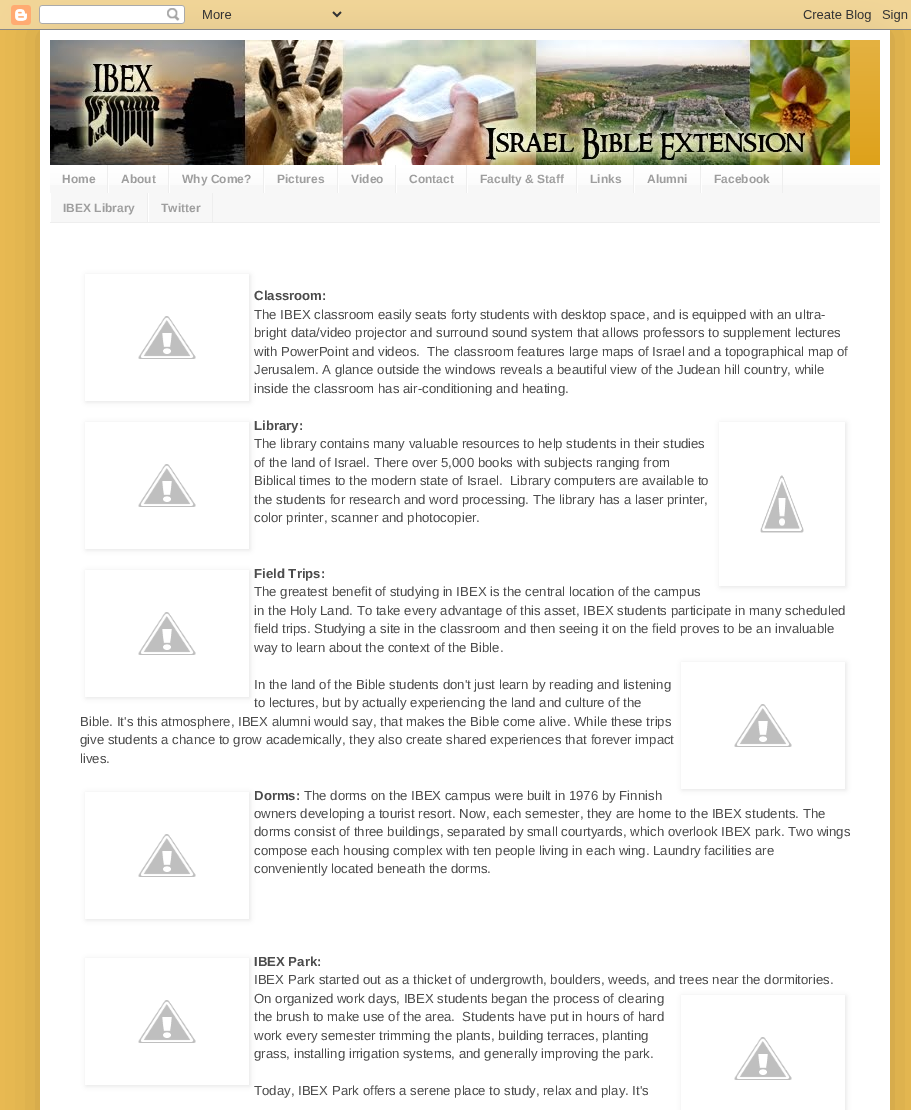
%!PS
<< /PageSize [911 1110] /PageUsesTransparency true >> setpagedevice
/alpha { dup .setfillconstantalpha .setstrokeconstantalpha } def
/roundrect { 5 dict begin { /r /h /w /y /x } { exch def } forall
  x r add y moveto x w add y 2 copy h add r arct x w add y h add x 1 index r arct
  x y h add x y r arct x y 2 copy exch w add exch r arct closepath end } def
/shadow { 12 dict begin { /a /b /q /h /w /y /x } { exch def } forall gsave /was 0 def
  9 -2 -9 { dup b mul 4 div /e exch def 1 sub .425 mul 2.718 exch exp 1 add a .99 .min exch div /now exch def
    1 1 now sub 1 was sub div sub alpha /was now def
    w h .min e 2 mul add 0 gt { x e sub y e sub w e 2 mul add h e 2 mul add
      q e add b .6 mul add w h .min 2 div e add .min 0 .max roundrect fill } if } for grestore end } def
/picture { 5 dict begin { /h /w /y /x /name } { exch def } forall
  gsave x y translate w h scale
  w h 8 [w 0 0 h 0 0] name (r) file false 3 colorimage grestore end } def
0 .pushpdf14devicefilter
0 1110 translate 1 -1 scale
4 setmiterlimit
0.914 0.729 0.322 setrgbcolor
0 0 911 1110 rectfill
0 setgray
40 30 850 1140 0 20 0.15 shadow
(img1.rgb) 0 0 911 30 picture
1 setgray
40 30 850 1080 rectfill
0.867 0.62 0.071 setrgbcolor
850 40 30 125 rectfill
(img2.rgb) 850 40 30 125 picture
(img3.rgb) 50 40 800 125 picture
0.969 setgray
50 166 830 56 rectfill
(img4.rgb) 50 165 830 20 picture
0.933 setgray
50 222 830 1 rectfill
107 165 1 28 rectfill
/LiberationSans-Bold [12 0 0 -12 0 0] selectfont
0.62 setgray
62 183 moveto (Home) show
0.933 setgray
168 165 1 28 rectfill
1 setgray
108 178 1 15 rectfill
0.62 setgray
121 183 moveto (About) show
0.933 setgray
263 165 1 28 rectfill
1 setgray
169 178 1 15 rectfill
0.62 setgray
182 183 moveto (Why Come?) show
0.933 setgray
337 165 1 28 rectfill
1 setgray
264 178 1 15 rectfill
0.62 setgray
277 183 moveto (Pictures) show
0.933 setgray
395 165 1 28 rectfill
1 setgray
338 178 1 15 rectfill
0.62 setgray
351 183 moveto (Video) show
0.933 setgray
466 165 1 28 rectfill
1 setgray
396 178 1 15 rectfill
0.62 setgray
409 183 moveto (Contact) show
0.933 setgray
576 165 1 28 rectfill
1 setgray
467 178 1 15 rectfill
0.62 setgray
480 183 moveto (Faculty & Staff) show
0.933 setgray
633 165 1 28 rectfill
1 setgray
577 178 1 15 rectfill
0.62 setgray
590 183 moveto (Links) show
0.933 setgray
700 165 1 28 rectfill
1 setgray
634 178 1 15 rectfill
0.62 setgray
647 183 moveto (Alumni) show
0.933 setgray
782 165 1 28 rectfill
1 setgray
701 178 1 15 rectfill
0.62 setgray
714 183 moveto (Facebook) show
0.933 setgray
147 193 1 29 rectfill
1 setgray
50 193 1 29 rectfill
0.62 setgray
63 212 moveto (IBEX Library) show
0.933 setgray
212 193 1 29 rectfill
1 setgray
148 193 1 29 rectfill
0.62 setgray
161 212 moveto (Twitter) show
gsave
newpath 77 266 moveto 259 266 lineto 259 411 lineto 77 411 lineto closepath 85 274 moveto 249 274 lineto 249 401 lineto 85 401 lineto closepath eoclip newpath
0 setgray
86 275 164 127 0 2.5 0.1 shadow
grestore
(img5.rgb) 138 316 58 43 picture
/LiberationSans-Bold [13.2 0 0 -13.2 0 0] selectfont
0.294 setgray
254 300 moveto (Classroom:) show
/LiberationSans-Regular [13.2 0 0 -13.2 0 0] selectfont
254 319 moveto (The IBEX classroom easily seats forty students with desktop space, and is equipped with an ultra-) show
254 337 moveto (bright data/video projector and surround sound system that allows professors to supplement lectures) show
254 356 moveto (with PowerPoint and videos.  The classroom features large maps of Israel and a topographical map of) show
254 374 moveto (Jerusalem. A glance outside the windows reveals a beautiful view of the Judean hill country, while) show
254 393 moveto (inside the classroom has air-conditioning and heating.) show
gsave
newpath 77 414 moveto 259 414 lineto 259 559 lineto 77 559 lineto closepath 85 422 moveto 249 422 lineto 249 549 lineto 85 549 lineto closepath eoclip newpath
0 setgray
86 423 164 127 0 2.5 0.1 shadow
grestore
(img5.rgb) 138 464 58 43 picture
/LiberationSans-Bold [13.2 0 0 -13.2 0 0] selectfont
254 430 moveto (Library:) show
gsave
newpath 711 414 moveto 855 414 lineto 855 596 lineto 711 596 lineto closepath 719 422 moveto 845 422 lineto 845 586 lineto 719 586 lineto closepath eoclip newpath
0 setgray
720 423 126 164 0 2.5 0.1 shadow
grestore
(img6.rgb) 760 475 44 58 picture
/LiberationSans-Regular [13.2 0 0 -13.2 0 0] selectfont
254 448 moveto (The library contains many valuable resources to help students in their studies) show
254 467 moveto (of the land of Israel. There over 5,000 books with subjects ranging from) show
254 485 moveto (Biblical times to the modern state of Israel.  Library computers are available to) show
254 504 moveto (the students for research and word processing. The library has a laser printer,) show
254 522 moveto (color printer, scanner and photocopier.) show
gsave
newpath 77 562 moveto 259 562 lineto 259 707 lineto 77 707 lineto closepath 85 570 moveto 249 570 lineto 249 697 lineto 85 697 lineto closepath eoclip newpath
0 setgray
86 571 164 127 0 2.5 0.1 shadow
grestore
(img5.rgb) 138 612 58 43 picture
/LiberationSans-Bold [13.2 0 0 -13.2 0 0] selectfont
254 578 moveto (Field Trips:) show
/LiberationSans-Regular [13.2 0 0 -13.2 0 0] selectfont
254 596 moveto (The greatest benefit of studying in IBEX is the central location of the campus) show
254 615 moveto (in the Holy Land. To take every advantage of this asset, IBEX students participate in many scheduled) show
254 633 moveto (field trips. Studying a site in the classroom and then seeing it on the field proves to be an invaluable) show
254 652 moveto (way to learn about the context of the Bible.) show
254 689 moveto (In the land of the Bible students don't just learn by reading and listening) show
gsave
newpath 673 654 moveto 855 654 lineto 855 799 lineto 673 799 lineto closepath 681 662 moveto 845 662 lineto 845 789 lineto 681 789 lineto closepath eoclip newpath
0 setgray
682 663 164 127 0 2.5 0.1 shadow
grestore
(img5.rgb) 734 704 58 43 picture
254 707 moveto (to lectures, but by actually experiencing the land and culture of the) show
80 726 moveto (Bible. It's this atmosphere, IBEX alumni would say, that makes the Bible come alive. While these trips) show
80 744 moveto (give students a chance to grow academically, they also create shared experiences that forever impact) show
80 763 moveto (lives.) show
gsave
newpath 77 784 moveto 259 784 lineto 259 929 lineto 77 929 lineto closepath 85 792 moveto 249 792 lineto 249 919 lineto 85 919 lineto closepath eoclip newpath
0 setgray
86 793 164 127 0 2.5 0.1 shadow
grestore
(img5.rgb) 138 834 58 43 picture
/LiberationSans-Bold [13.2 0 0 -13.2 0 0] selectfont
254 800 moveto (Dorms:) show
/LiberationSans-Regular [13.2 0 0 -13.2 0 0] selectfont
304 800 moveto (The dorms on the IBEX campus were built in 1976 by Finnish) show
254 818 moveto (owners developing a tourist resort. Now, each semester, they are home to the IBEX students. The) show
254 836 moveto (dorms consist of three buildings, separated by small courtyards, which overlook IBEX park. Two wings) show
254 855 moveto (compose each housing complex with ten people living in each wing. Laundry facilities are) show
254 873 moveto (conveniently located beneath the dorms.) show
gsave
newpath 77 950 moveto 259 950 lineto 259 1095 lineto 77 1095 lineto closepath 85 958 moveto 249 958 lineto 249 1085 lineto 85 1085 lineto closepath eoclip newpath
0 setgray
86 959 164 127 0 2.5 0.1 shadow
grestore
(img5.rgb) 138 1000 58 43 picture
/LiberationSans-Bold [13.2 0 0 -13.2 0 0] selectfont
254 966 moveto (IBEX Park:) show
/LiberationSans-Regular [13.2 0 0 -13.2 0 0] selectfont
254 984 moveto (IBEX Park started out as a thicket of undergrowth, boulders, weeds, and trees near the dormitories.) show
254 1003 moveto (On organized work days, IBEX students began the process of clearing) show
gsave
newpath 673 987 moveto 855 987 lineto 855 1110 lineto 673 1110 lineto closepath 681 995 moveto 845 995 lineto 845 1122 lineto 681 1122 lineto closepath eoclip newpath
0 setgray
682 996 164 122 0 2.5 0.1 shadow
grestore
(img5.rgb) 734 1037 58 43 picture
254 1021 moveto (the brush to make use of the area.  Students have put in hours of hard) show
254 1040 moveto (work every semester trimming the plants, building terraces, planting) show
254 1058 moveto (grass, installing irrigation systems, and generally improving the park.) show
254 1095 moveto (Today, IBEX Park offers a serene place to study, relax and play. It's) show
.poppdf14devicefilter showpage
